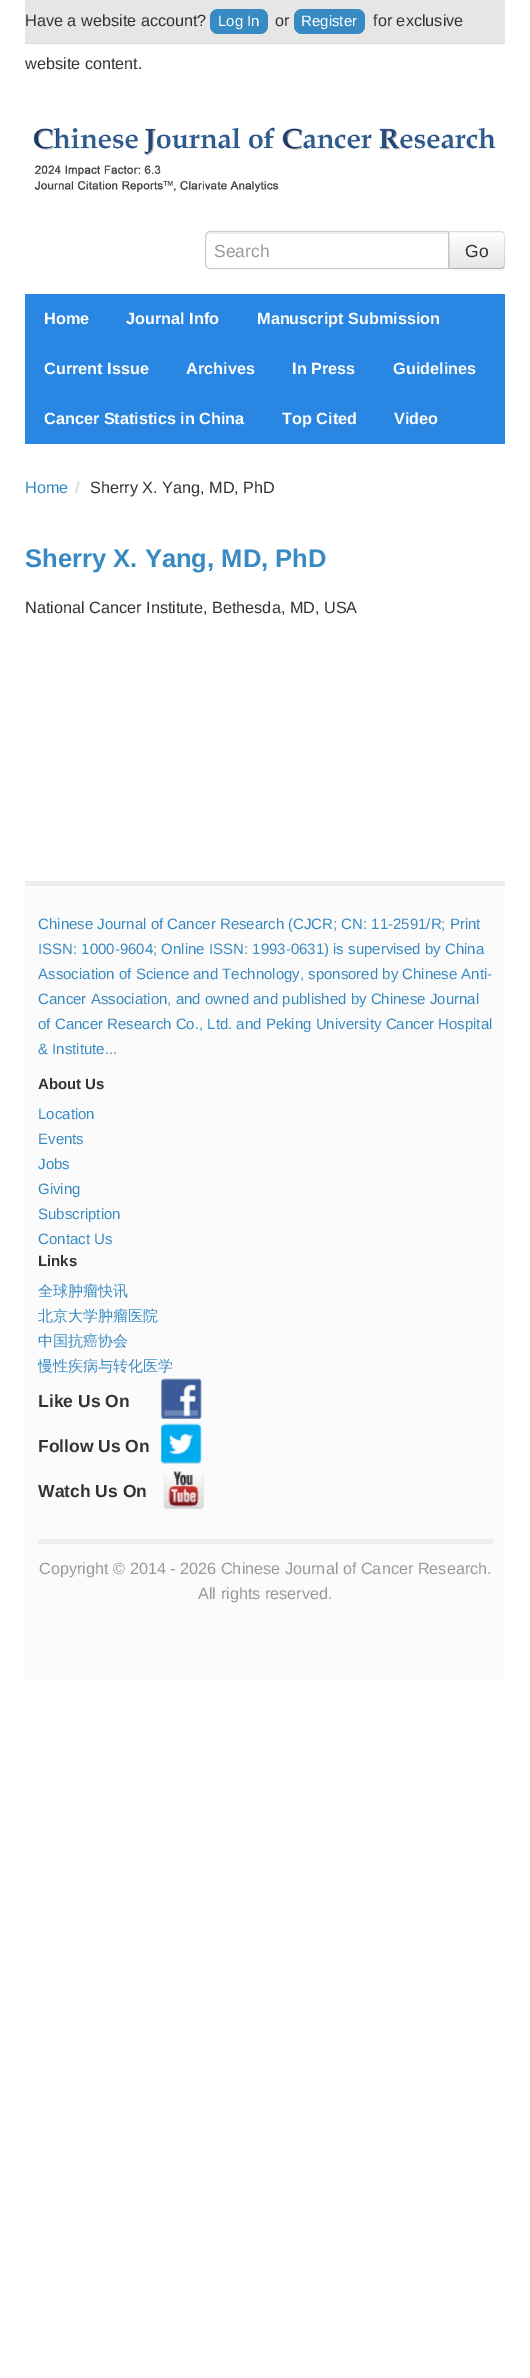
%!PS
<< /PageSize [530 2378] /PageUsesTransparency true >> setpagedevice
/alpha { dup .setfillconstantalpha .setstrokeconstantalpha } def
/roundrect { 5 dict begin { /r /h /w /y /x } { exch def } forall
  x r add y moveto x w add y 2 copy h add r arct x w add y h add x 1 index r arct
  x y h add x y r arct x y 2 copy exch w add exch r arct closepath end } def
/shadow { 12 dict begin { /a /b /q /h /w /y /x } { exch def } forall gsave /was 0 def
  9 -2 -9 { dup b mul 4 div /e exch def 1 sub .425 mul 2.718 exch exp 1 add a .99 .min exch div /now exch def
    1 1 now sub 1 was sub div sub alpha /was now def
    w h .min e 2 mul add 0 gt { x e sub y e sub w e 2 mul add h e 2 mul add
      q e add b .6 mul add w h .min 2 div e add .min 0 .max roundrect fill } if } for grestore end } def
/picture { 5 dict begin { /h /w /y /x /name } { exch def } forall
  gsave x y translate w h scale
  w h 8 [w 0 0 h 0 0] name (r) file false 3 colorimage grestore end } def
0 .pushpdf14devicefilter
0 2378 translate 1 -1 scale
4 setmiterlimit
1 setgray
0 0 530 2378 rectfill
0.902 setgray
25 0 480 43 rectfill
0.851 setgray
25 43 480 1 rectfill
/LiberationSans-Regular [16.25 0 0 -16.25 0 0] selectfont
0.2 setgray
25 26 moveto (Have a website account?) show
0.22 0.541 0.761 setrgbcolor
210 9 58 25 8 roundrect fill
/LiberationSans-Regular [15 0 0 -15 0 0] selectfont
1 setgray
218 26 moveto (Log In) show
/LiberationSans-Regular [16.25 0 0 -16.25 0 0] selectfont
0.2 setgray
275 26 moveto (or) show
0.22 0.541 0.761 setrgbcolor
294 9 71 25 8 roundrect fill
/LiberationSans-Regular [15 0 0 -15 0 0] selectfont
1 setgray
301 26 moveto (Register) show
/LiberationSans-Regular [16.25 0 0 -16.25 0 0] selectfont
0.2 setgray
373 26 moveto (for exclusive) show
25 69 moveto (website content.) show
(img1.rgb) 33 127 463 65 picture
0.925 setgray
newpath 210 234 moveto 448 234 lineto 448 233 lineto 210 233 lineto 207 233 206 235 206 238 curveto 206 235 208 234 210 234 curveto closepath fill
0.8 setgray
newpath 210 231.5 moveto 448.5 231.5 lineto 448.5 268.5 lineto 210 268.5 lineto 207.5 268.5 205.5 266.5 205.5 264 curveto 205.5 236 lineto 205.5 233.5 207.5 231.5 210 231.5 curveto closepath stroke
/LiberationSans-Regular [17.5 0 0 -17.5 0 0] selectfont
0.6 setgray
214 257 moveto (Search) show
0 setgray
449 233 56 37 5 1 0.05 shadow
0.961 setgray
newpath 449 231 moveto 500 231 lineto 503 231 505 233 505 236 curveto 505 264 lineto 505 267 503 269 500 269 curveto 449 269 lineto closepath fill
gsave
newpath 449 231 moveto 500 231 lineto 503 231 505 233 505 236 curveto 505 264 lineto 505 267 503 269 500 269 curveto 449 269 lineto closepath clip newpath
gsave newpath 449 233 moveto 505 233 lineto 505 268 lineto 449 268 lineto closepath clip newpath
<< /ShadingType 2 /ColorSpace /DeviceRGB /Coords [477 233 477 268] /Extend [true true] /Function << /FunctionType 2 /Domain [0 1] /C0 [1 1 1] /C1 [0.902 0.902 0.902] /N 1 >> >> shfill grestore
grestore
0.1 alpha
0 setgray
newpath 450 232 moveto 449 231 lineto 502 231 lineto 504 233 lineto 503 233 lineto 500 232 lineto closepath fill
newpath 505 264 moveto 505 236 lineto 505 234.5 504.5 233.5 503.5 232.5 curveto 503 233.5 lineto 503.5 234 504 235 504 236 curveto 504 264 lineto 504 265 503.5 266 503 266.5 curveto 503.5 267.5 lineto 504.5 266.5 505 265.5 505 264 curveto closepath fill
1 alpha
0.702 setgray
newpath 449 269 moveto 450 268 lineto 501 268 lineto 503 267 lineto 504 267 lineto 502 269 lineto closepath fill
0.1 alpha
0 setgray
newpath 449 268.5 moveto 449 231.5 lineto 450 232.5 lineto 450 267.5 lineto closepath fill
1 alpha
0.2 setgray
465 257 moveto (Go) show
0.161 0.525 0.886 setrgbcolor
25 294 480 150 rectfill
/LiberationSans-Bold [16.25 0 0 -16.25 0 0] selectfont
1 setgray
44 324 moveto (Home) show
126 324 moveto (Journal Info) show
257 324 moveto (Manuscript Submission) show
44 374 moveto (Current Issue) show
186 374 moveto (Archives) show
292 374 moveto (In Press) show
393 374 moveto (Guidelines) show
44 424 moveto (Cancer Statistics in China) show
282 424 moveto (Top Cited) show
394 424 moveto (Video) show
/LiberationSans-Regular [16.25 0 0 -16.25 0 0] selectfont
0.22 0.541 0.761 setrgbcolor
25 493 moveto (Home) show
0.8 setgray
75 493 moveto (/) show
0.2 setgray
90 493 moveto (Sherry X. Yang, MD, PhD) show
/LiberationSans-Bold [25.6 0 0 -25.6 0 0] selectfont
0.22 0.541 0.761 setrgbcolor
25 567 moveto (Sherry X. Yang, MD, PhD) show
/LiberationSans-Regular [16.25 0 0 -16.25 0 0] selectfont
0.2 setgray
25 613 moveto (National Cancer Institute, Bethesda, MD, USA) show
0.984 setgray
25 886 480 795 rectfill
0.933 setgray
25 881 480 5 rectfill
/LiberationSans-Regular [15 0 0 -15 0 0] selectfont
0.22 0.541 0.761 setrgbcolor
38 929 moveto (Chinese Journal of Cancer Research \(CJCR; CN: 11-2591/R; Print) show
38 954 moveto (ISSN: 1000-9604; Online ISSN: 1993-0631\) is supervised by China) show
38 979 moveto (Association of Science and Technology, sponsored by Chinese Anti-) show
38 1004 moveto (Cancer Association, and owned and published by Chinese Journal) show
38 1029 moveto (of Cancer Research Co., Ltd. and Peking University Cancer Hospital) show
38 1054 moveto (& Institute...) show
/LiberationSans-Bold [15 0 0 -15 0 0] selectfont
0.2 setgray
38 1089 moveto (About Us) show
/LiberationSans-Regular [15 0 0 -15 0 0] selectfont
0.22 0.541 0.761 setrgbcolor
38 1119 moveto (Location) show
38 1144 moveto (Events) show
38 1169 moveto (Jobs) show
38 1194 moveto (Giving) show
38 1219 moveto (Subscription) show
38 1244 moveto (Contact Us) show
/LiberationSans-Bold [15 0 0 -15 0 0] selectfont
0.2 setgray
38 1266 moveto (Links) show
/WenQuanYiZenHei-Medium [15 0 0 -15 0 0] selectfont
0.22 0.541 0.761 setrgbcolor
38 1296 moveto (全球肿瘤快讯) show
38 1321 moveto (北京大学肿瘤医院) show
38 1346 moveto (中国抗癌协会) show
38 1371 moveto (慢性疾病与转化医学) show
/LiberationSans-Bold [17.5 0 0 -17.5 0 0] selectfont
0.2 setgray
38 1407 moveto (Like Us On) show
(img2.rgb) 161 1378 41 41 picture
38 1452 moveto (Follow Us On) show
(img3.rgb) 161 1423 41 41 picture
38 1497 moveto (Watch Us On) show
(img4.rgb) 163 1470 41 39 picture
0.933 setgray
38 1539 455 5 rectfill
/LiberationSans-Regular [16.25 0 0 -16.25 0 0] selectfont
0.6 setgray
39 1574 moveto (Copyright © 2014 - 2026 Chinese Journal of Cancer Research.) show
198 1599 moveto (All rights reserved.) show
.poppdf14devicefilter showpage
